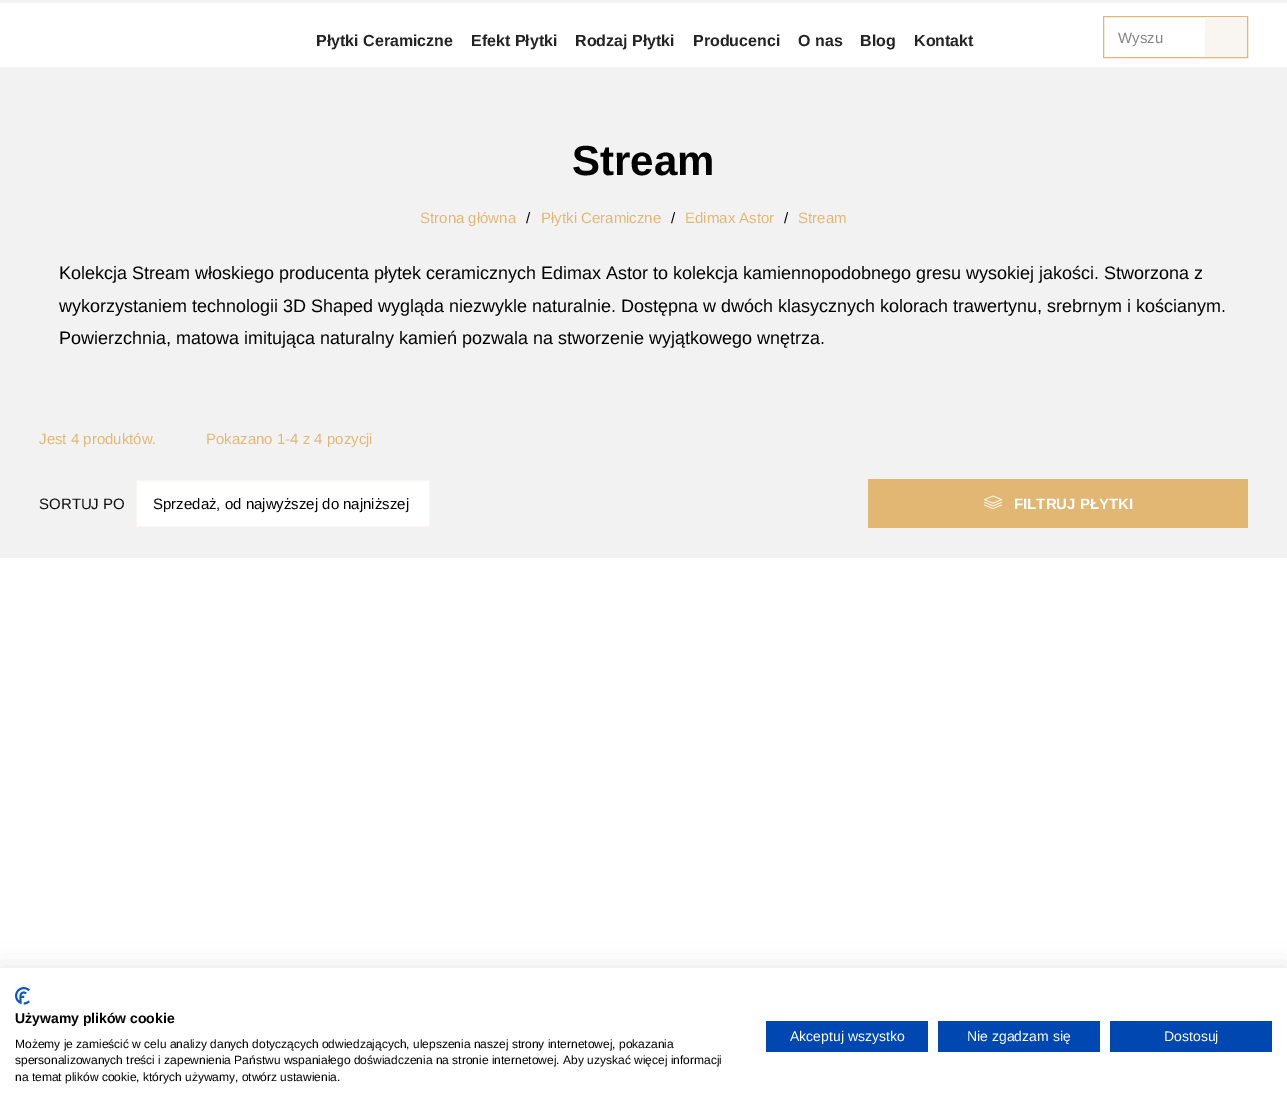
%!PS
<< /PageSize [1287 1113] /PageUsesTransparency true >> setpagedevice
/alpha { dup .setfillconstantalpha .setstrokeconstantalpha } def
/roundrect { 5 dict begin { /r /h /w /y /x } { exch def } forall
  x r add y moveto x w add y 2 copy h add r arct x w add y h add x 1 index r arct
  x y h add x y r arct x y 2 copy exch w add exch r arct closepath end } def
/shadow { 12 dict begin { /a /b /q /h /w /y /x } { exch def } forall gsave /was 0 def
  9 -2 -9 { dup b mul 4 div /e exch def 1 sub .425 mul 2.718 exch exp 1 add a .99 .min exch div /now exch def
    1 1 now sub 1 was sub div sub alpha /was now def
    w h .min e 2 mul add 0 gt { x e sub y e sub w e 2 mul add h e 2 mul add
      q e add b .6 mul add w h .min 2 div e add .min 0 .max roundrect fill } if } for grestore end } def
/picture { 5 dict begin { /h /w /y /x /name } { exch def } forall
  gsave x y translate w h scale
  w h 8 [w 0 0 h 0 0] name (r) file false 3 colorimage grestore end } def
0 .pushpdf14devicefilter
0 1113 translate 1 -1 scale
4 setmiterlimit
1 setgray
0 0 1287 1113 rectfill
0.949 setgray
0 0 1287 3 rectfill
/LiberationSans-Bold [16 0 0 -16 0 0] selectfont
0.137 setgray
316 46 moveto (Płytki Ceramiczne) show
471 46 moveto (Efekt Płytki) show
575 46 moveto (Rodzaj Płytki) show
693 46 moveto (Producenci) show
798 46 moveto (O nas) show
860 46 moveto (Blog) show
914 46 moveto (Kontakt) show
0.886 0.718 0.455 setrgbcolor
1103.5 16.5 144 41 rectstroke
/LiberationSans-Regular [15 0 0 -15 0 0] selectfont
0.522 setgray
1118 43 moveto (Wyszu) show
0.976 0.965 0.945 setrgbcolor
1205 17 42 40 rectfill
0.949 setgray
0 67 1287 491 rectfill
/LiberationSans-Bold [42 0 0 -42 0 0] selectfont
0 setgray
572 175 moveto (Stream) show
/LiberationSans-Regular [15 0 0 -15 0 0] selectfont
0.886 0.718 0.455 setrgbcolor
420 223 moveto (Strona główna) show
0 setgray
526 223 moveto (/) show
0.886 0.718 0.455 setrgbcolor
541 223 moveto (Płytki Ceramiczne) show
0 setgray
671 223 moveto (/) show
0.886 0.718 0.455 setrgbcolor
685 223 moveto (Edimax Astor) show
0 setgray
784 223 moveto (/) show
0.886 0.718 0.455 setrgbcolor
798 223 moveto (Stream) show
/LiberationSans-Regular [18 0 0 -18 0 0] selectfont
0 setgray
59 279 moveto (Kolekcja Stream włoskiego producenta płytek ceramicznych Edimax Astor to kolekcja kamiennopodobnego gresu wysokiej jakości. Stworzona z) show
59 312 moveto (wykorzystaniem technologii 3D Shaped wygląda niezwykle naturalnie. Dostępna w dwóch klasycznych kolorach trawertynu, srebrnym i kościanym.) show
59 344 moveto (Powierzchnia, matowa imitująca naturalny kamień pozwala na stworzenie wyjątkowego wnętrza.) show
/LiberationSans-Regular [15 0 0 -15 0 0] selectfont
0.886 0.718 0.455 setrgbcolor
39 444 moveto (Jest 4 produktów.) show
206 444 moveto (Pokazano 1-4 z 4 pozycji) show
0.063 setgray
39 509 moveto (SORTUJ PO) show
1 setgray
newpath 136.5 480.5 moveto 429.5 480.5 lineto 429.5 526.5 lineto 136.5 526.5 lineto closepath gsave fill grestore
0.976 0.965 0.945 setrgbcolor
stroke
0 setgray
153 509 moveto (Sprzedaż, od najwyższej do najniższej) show
0.886 0.718 0.455 setrgbcolor
868 479 380 49 rectfill
(img1.rgb) 984 495 18 14 picture
/LiberationSans-Bold [15 0 0 -15 0 0] selectfont
1 setgray
1014 509 moveto (FILTRUJ PŁYTKI) show
0 setgray
0 968 1287 145 0 12 0.1 shadow
1 setgray
0 968 1287 145 rectfill
(img2.rgb) 15 987 15 18 picture
/LiberationSans-Bold [14 0 0 -14 0 0] selectfont
0 setgray
15 1023 moveto (Używamy plików cookie) show
/LiberationSans-Regular [12 0 0 -12 0 0] selectfont
15 1048 moveto (Możemy je zamieścić w celu analizy danych dotyczących odwiedzających, ulepszenia naszej strony internetowej, pokazania) show
15 1064 moveto (spersonalizowanych treści i zapewnienia Państwu wspaniałego doświadczenia na stronie internetowej. Aby uzyskać więcej informacji) show
15 1081 moveto (na temat plików cookie, których używamy, otwórz ustawienia.) show
0 0.278 0.698 setrgbcolor
766 1021 162 31 rectfill
/LiberationSans-Regular [14 0 0 -14 0 0] selectfont
1 setgray
790 1041 moveto (Akceptuj wszystko) show
0 0.278 0.698 setrgbcolor
938 1021 162 31 rectfill
1 setgray
967 1041 moveto (Nie zgadzam się) show
0 0.278 0.698 setrgbcolor
1110 1021 162 31 rectfill
1 setgray
1164 1041 moveto (Dostosuj) show
.poppdf14devicefilter showpage
